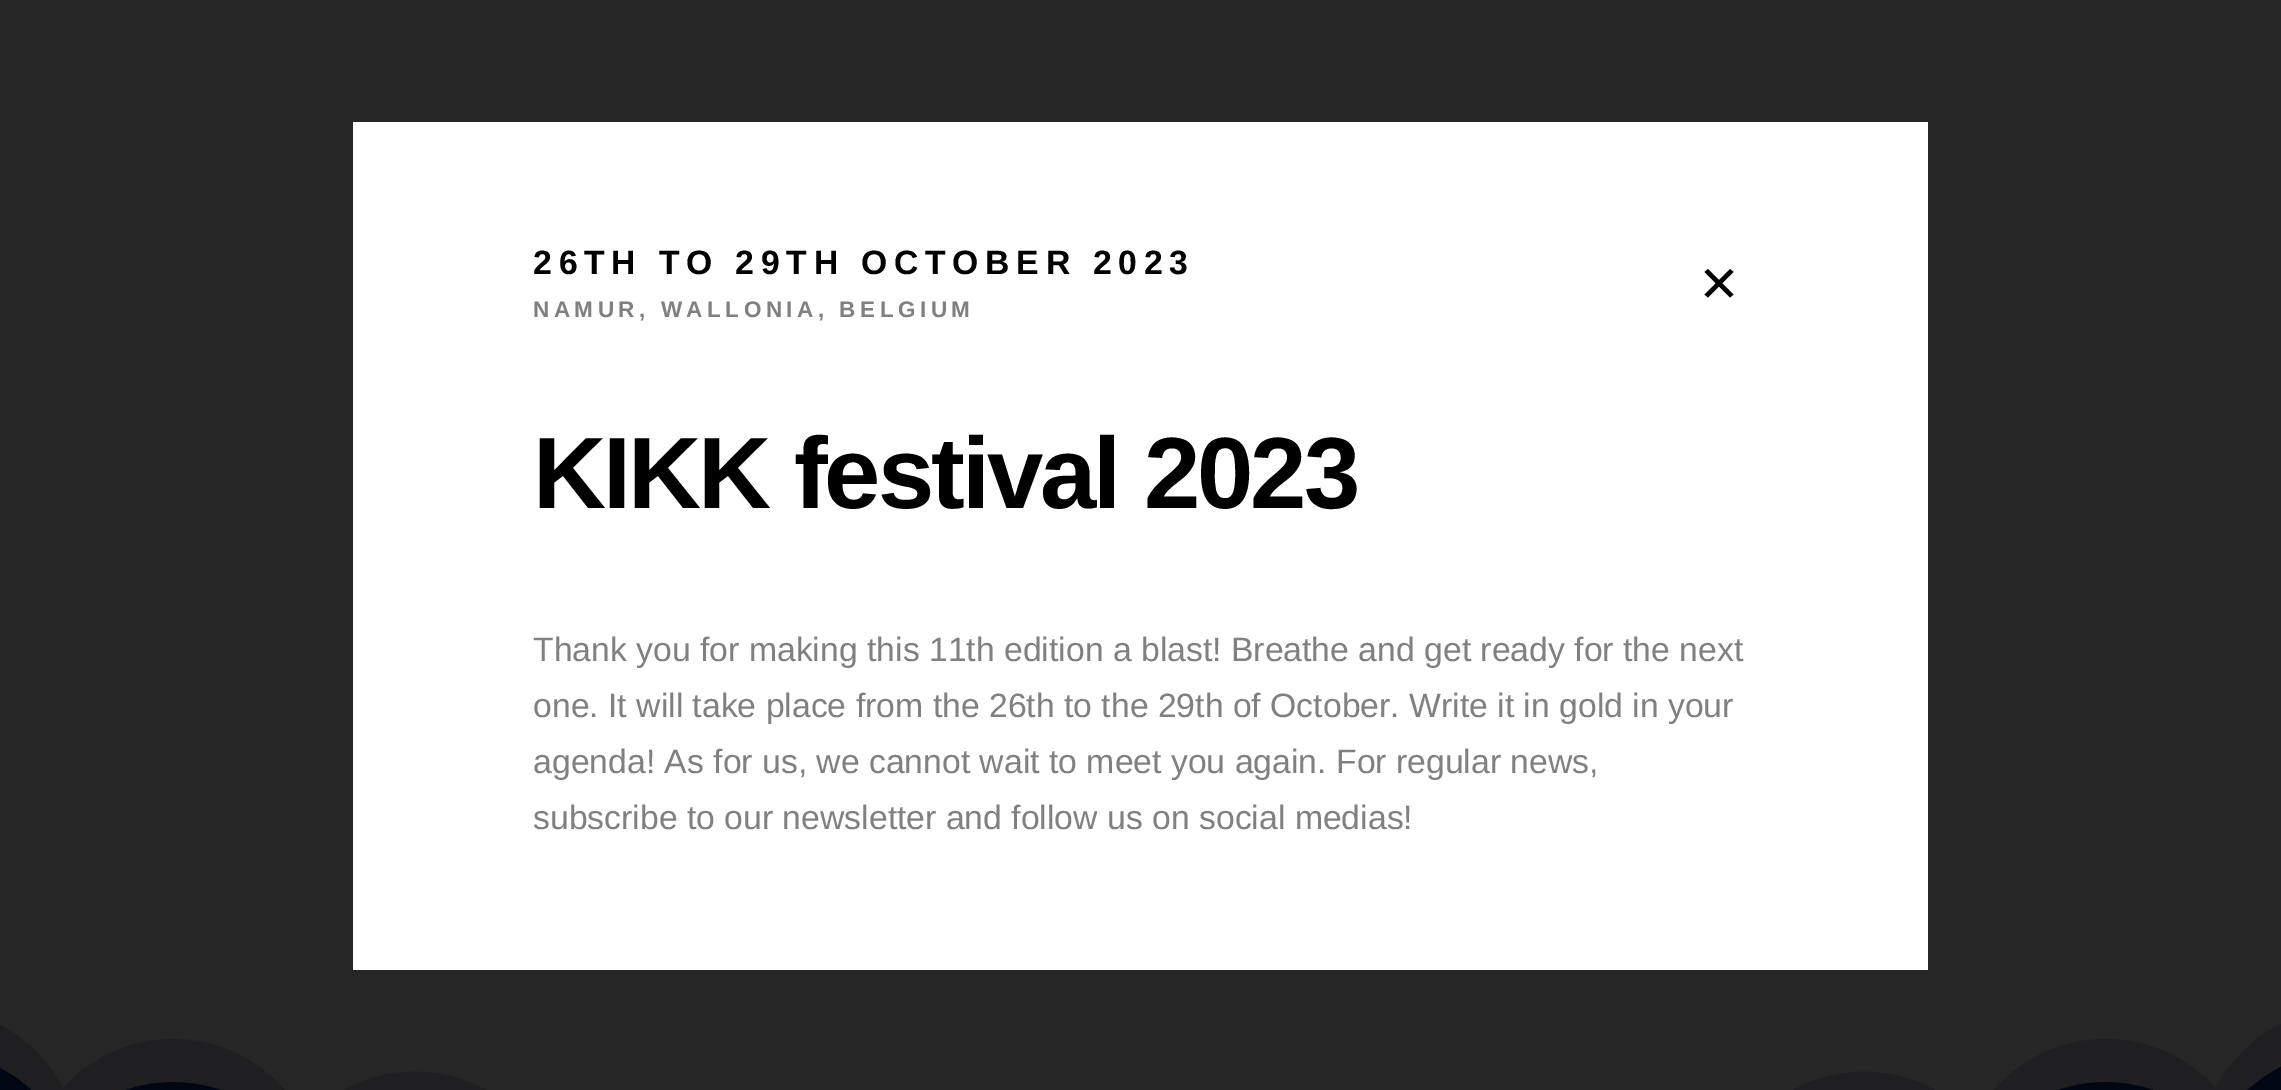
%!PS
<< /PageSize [2281 1090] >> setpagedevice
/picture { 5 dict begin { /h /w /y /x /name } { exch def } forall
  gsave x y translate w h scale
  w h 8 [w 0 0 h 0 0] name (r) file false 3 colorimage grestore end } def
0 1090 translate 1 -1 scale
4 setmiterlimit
0.149 setgray
0 0 2281 1090 rectfill
1 setgray
353 122 1575 848 rectfill
/LiberationSans-Bold [33.75 0 0 -33.75 0 0] selectfont
0 setgray
533 274 moveto 6.75 0 (26TH TO 29TH OCTOBER 2023) ashow
newpath 1704.5 294.5 moveto 1730 269 lineto 1733.5 272 lineto 1708 297.5 lineto closepath fill
newpath 1708 269 moveto 1733.5 294.5 lineto 1730 297.5 lineto 1704.5 272 lineto closepath fill
/LiberationSans-Bold [22.5 0 0 -22.5 0 0] selectfont
0.502 setgray
533 317 moveto 4.5 0 (NAMUR, WALLONIA, BELGIUM) ashow
/LiberationSans-Bold [101.25 0 0 -101.25 0 0] selectfont
0 setgray
533 508 moveto -3 0 (KIKK festival 2023) ashow
/LiberationSans-Regular [33.75 0 0 -33.75 0 0] selectfont
0.502 setgray
533 661 moveto (Thank you for making this 11th edition a blast! Breathe and get ready for the next) show
533 717 moveto (one. It will take place from the 26th to the 29th of October. Write it in gold in your) show
533 773 moveto (agenda! As for us, we cannot wait to meet you again. For regular news,) show
533 829 moveto (subscribe to our newsletter and follow us on social medias!) show
(img1.rgb) 0 1023 2281 67 picture
(img2.rgb) 0 1066 2281 24 picture
showpage
